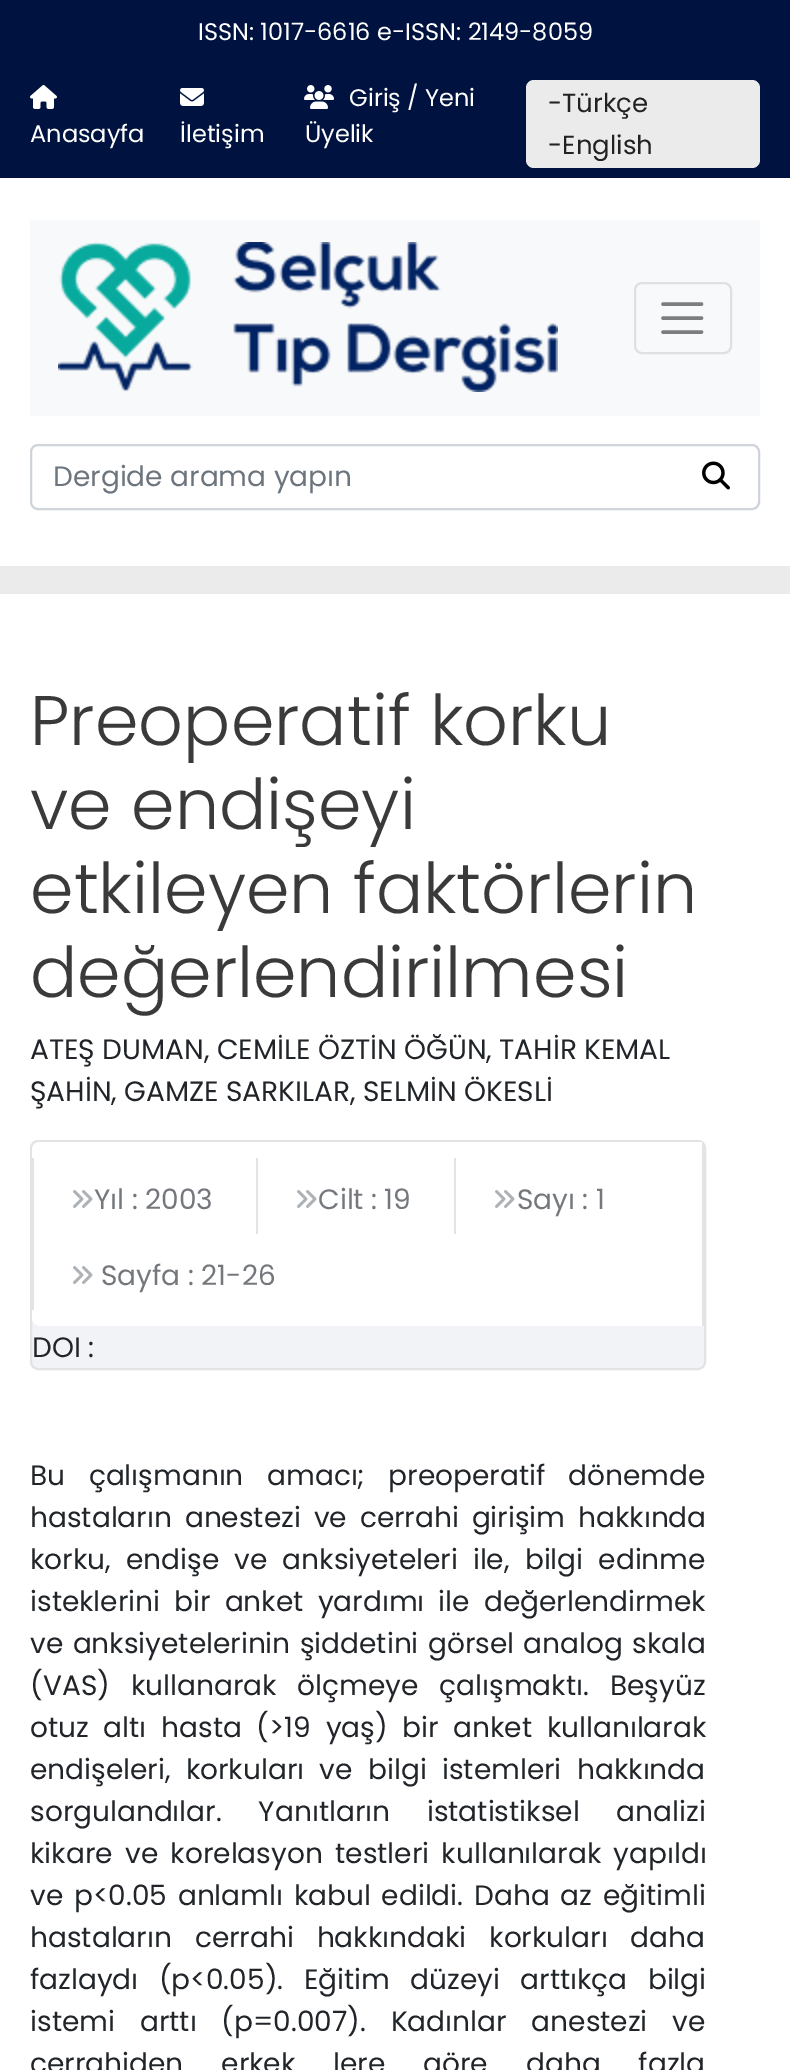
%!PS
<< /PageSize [790 2070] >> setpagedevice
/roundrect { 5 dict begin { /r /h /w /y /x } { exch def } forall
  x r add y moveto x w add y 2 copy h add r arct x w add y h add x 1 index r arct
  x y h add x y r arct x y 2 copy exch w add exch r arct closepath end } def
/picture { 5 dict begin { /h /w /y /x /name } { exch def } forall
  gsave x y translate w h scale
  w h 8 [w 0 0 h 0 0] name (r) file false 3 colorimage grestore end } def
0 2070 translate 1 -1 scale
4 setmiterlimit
0.922 setgray
0 0 790 2070 rectfill
1 setgray
0 178 790 388 rectfill
0 0.071 0.247 setrgbcolor
0 0 790 178 rectfill
/Poppins-Regular [24 0 0 -24 0 0] selectfont
1 setgray
198 40 moveto (ISSN: 1017-6616 e-ISSN: 2149-8059) show
(img1.rgb) 30 85 27 24 picture
30 142 moveto (Anasayfa) show
(img2.rgb) 180 88 24 18 picture
180 142 moveto (İletişim) show
(img3.rgb) 304 85 30 24 picture
349 106 moveto (Giriş / Yeni) show
305 142 moveto (Üyelik) show
0.922 setgray
526 80 234 88 8 roundrect fill
/Poppins-Regular [26 0 0 -26 0 0] selectfont
0.133 setgray
548 112 moveto (-Türkçe) show
548 154 moveto (-English) show
0.973 0.976 0.98 setrgbcolor
30 220 730 196 rectfill
(img4.rgb) 58 242 500 150 picture
0.875 0.878 0.882 setrgbcolor
2 setlinewidth
635 283 96 70 7 roundrect stroke
0.486 0.49 0.49 setrgbcolor
3.5 setlinewidth
1 setlinecap
newpath 663 304 moveto 701.5 304 lineto 663 318 moveto 701.5 318 lineto 663 332 moveto 701.5 332 lineto stroke
0.808 0.831 0.855 setrgbcolor
2 setlinewidth
0 setlinecap
31 445 728 64 7 roundrect stroke
/Poppins-Regular [28 0 0 -28 0 0] selectfont
0.424 0.459 0.49 setrgbcolor
53 486 moveto (Dergide arama yapın) show
(img5.rgb) 702 461 28 29 picture
1 setgray
0 594 790 1476 rectfill
/Poppins-Light [70 0 0 -70 0 0] selectfont
0.227 setgray
30 745 moveto (Preoperatif korku) show
30 829 moveto (ve endişeyi) show
30 913 moveto (etkileyen faktörlerin) show
30 997 moveto (değerlendirilmesi) show
/Poppins-Regular [28 0 0 -28 0 0] selectfont
0.129 0.145 0.161 setrgbcolor
30 1059 moveto (ATEŞ DUMAN, CEMİLE ÖZTİN ÖĞÜN, TAHİR KEMAL) show
30 1101 moveto (ŞAHİN, GAMZE SARKILAR, SELMİN ÖKESLİ) show
0.945 0.953 0.965 setrgbcolor
31 1141 674 228 7 roundrect gsave fill grestore
0.89 setgray
stroke
1 setgray
newpath 40 1142 moveto 704 1142 lineto 704 1326 lineto 40 1326 lineto 35.5 1326 32 1322.5 32 1318 curveto 32 1150 lineto 32 1145.5 35.5 1142 40 1142 curveto closepath fill
0.894 setgray
702 1142 2 184 rectfill
32 1158 2 152 rectfill
(img6.rgb) 73 1190 20 18 picture
0.455 0.467 0.486 setrgbcolor
94 1209 moveto (Yıl : 2003) show
0.894 setgray
256 1158 2 76 rectfill
(img6.rgb) 297 1190 20 18 picture
0.455 0.467 0.486 setrgbcolor
318 1209 moveto (Cilt : 19) show
0.894 setgray
454 1158 2 76 rectfill
(img6.rgb) 495 1190 20 18 picture
0.455 0.467 0.486 setrgbcolor
517 1209 moveto (Sayı : 1) show
(img6.rgb) 73 1266 20 18 picture
101 1285 moveto (Sayfa : 21-26) show
0.129 0.145 0.161 setrgbcolor
32 1357 moveto (DOI :) show
30 1485 moveto 16 0 32 (Bu çalışmanın amacı; preoperatif dönemde) widthshow
30 1527 moveto 5.5 0 32 (hastaların anestezi ve cerrahi girişim hakkında) widthshow
30 1569 moveto 7.75 0 32 (korku, endişe ve anksiyeteleri ile, bilgi edinme) widthshow
30 1611 moveto 6.75 0 32 (isteklerini bir anket yardımı ile değerlendirmek) widthshow
30 1653 moveto 2 0 32 (ve anksiyetelerinin şiddetini görsel analog skala) widthshow
30 1695 moveto 13.5 0 32 (\(VAS\) kullanarak ölçmeye çalışmaktı. Beşyüz) widthshow
30 1737 moveto 7.25 0 32 (otuz altı hasta \(>19 yaş\) bir anket kullanılarak) widthshow
30 1779 moveto 8 0 32 (endişeleri, korkuları ve bilgi istemleri hakkında) widthshow
30 1821 moveto 29.5 0 32 (sorgulandılar. Yanıtların istatistiksel analizi) widthshow
30 1863 moveto 5 0 32 (kikare ve korelasyon testleri kullanılarak yapıldı) widthshow
30 1905 moveto 3.25 0 32 (ve p<0.05 anlamlı kabul edildi. Daha az eğitimli) widthshow
30 1947 moveto 15.5 0 32 (hastaların cerrahi hakkındaki korkuları daha) widthshow
30 1989 moveto 13 0 32 (fazlaydı \(p<0.05\). Eğitim düzeyi arttıkça bilgi) widthshow
30 2031 moveto 17.5 0 32 (istemi arttı \(p=0.007\). Kadınlar anestezi ve) widthshow
30 2073 moveto 30.5 0 32 (cerrahiden erkek lere göre daha fazla) widthshow
showpage
